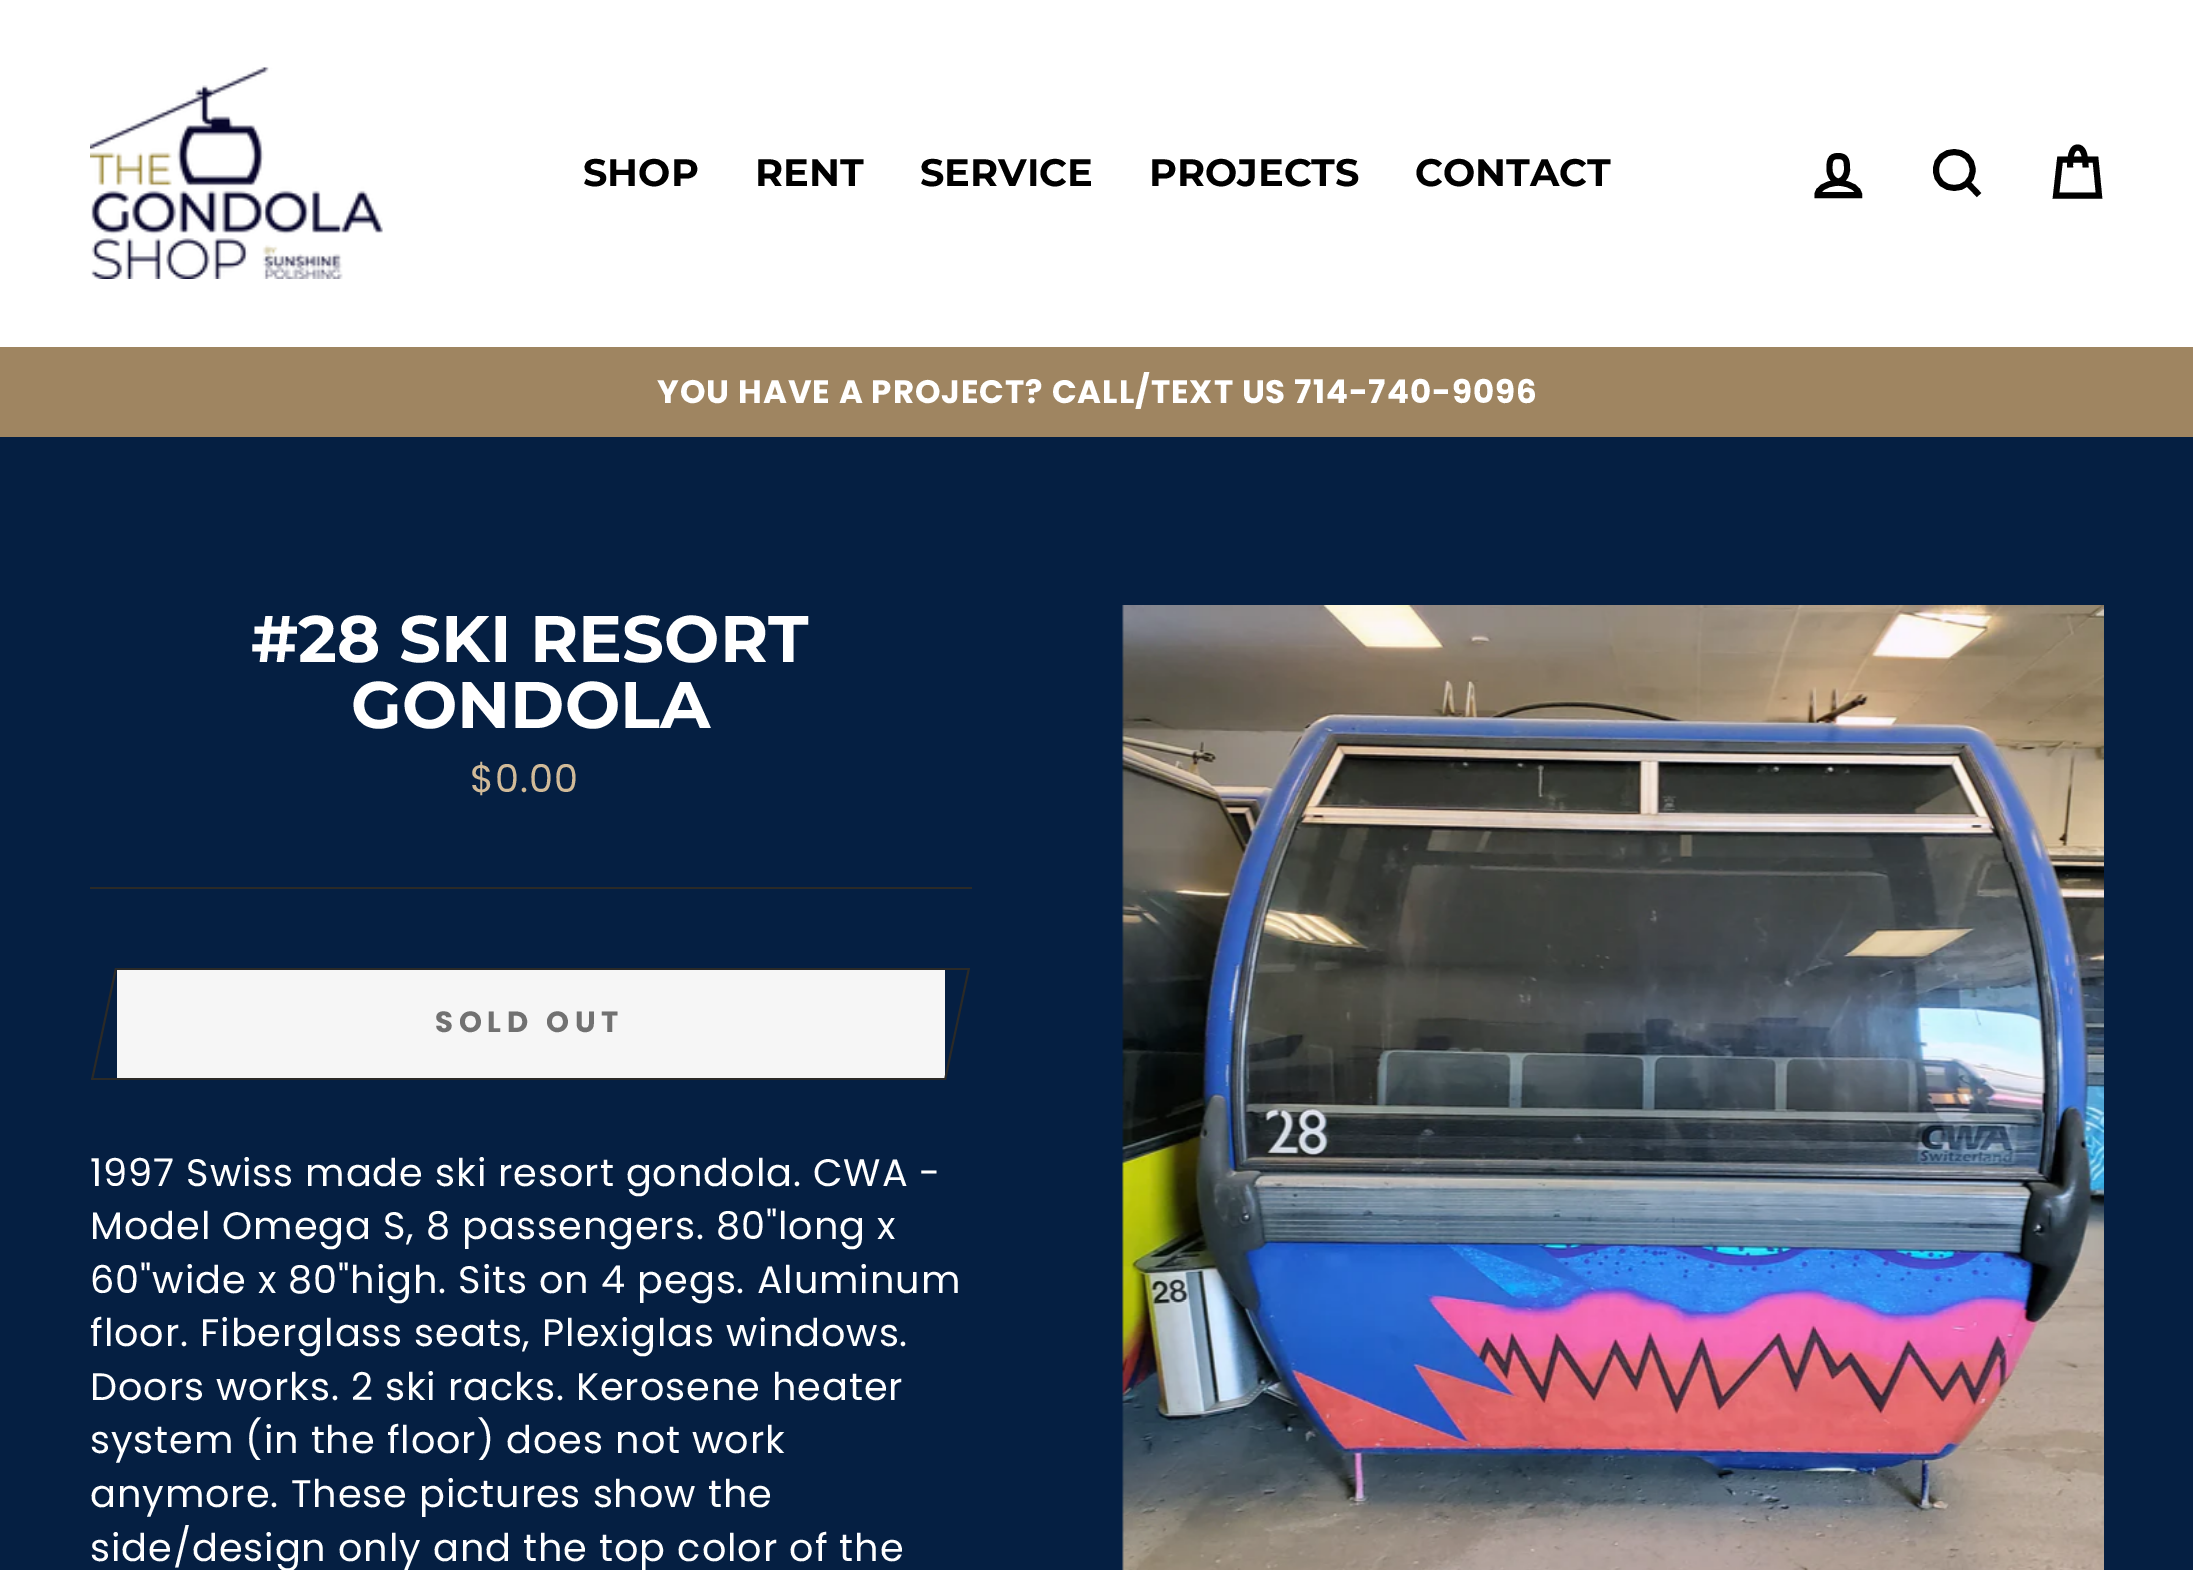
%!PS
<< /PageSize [2193 1570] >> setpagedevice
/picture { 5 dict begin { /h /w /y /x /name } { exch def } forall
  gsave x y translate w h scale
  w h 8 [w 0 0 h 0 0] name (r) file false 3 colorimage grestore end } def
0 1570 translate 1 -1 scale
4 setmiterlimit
0.02 0.122 0.259 setrgbcolor
0 0 2193 1570 rectfill
1 setgray
0 0 2193 347 rectfill
(img1.rgb) 90 67 293 212 picture
/Montserrat-Bold [38.25 0 0 -38.25 0 0] selectfont
0 setgray
583 186 moveto (SHOP) show
755 186 moveto (RENT) show
920 186 moveto (SERVICE) show
1149 186 moveto (PROJECTS) show
1415 186 moveto (CONTACT) show
5.9 setlinewidth
newpath 1841 183 moveto 1841 180.5 lineto 1844.5 179 1847 174 1847 169.5 curveto 1847 162 1847 156 1838 156 curveto 1829.5 156 1829.5 162 1829.5 169.5 curveto 1829.5 174 1832 179 1835.5 180.5 curveto 1835.5 183 lineto 1825.5 184 1817.5 189 1817.5 195 curveto 1859 195 lineto 1859 189 1851 184 1841 183 curveto closepath stroke
newpath 1972.5 170 moveto 1972.5 194 1936 194 1936 170 curveto 1936 146 1972.5 146 1972.5 170 curveto closepath 1979 195 moveto 1967.5 183 lineto stroke
newpath 2070 167.5 moveto 2070 152 2073.5 147.5 2077.5 147.5 curveto 2082 147.5 2085.5 152 2085.5 167.5 curveto 2060 159.5 moveto 2095.5 159.5 lineto 2099 195.5 lineto 2056 195.5 lineto closepath stroke
0.624 0.522 0.38 setrgbcolor
0 347 2193 90 rectfill
/Poppins-Bold [32.5 0 0 -32.5 0 0] selectfont
1 setgray
657 403 moveto 0.95 0 (YOU HAVE A PROJECT? CALL/TEXT US 714-740-9096) ashow
/Montserrat-Bold [65.75 0 0 -65.75 0 0] selectfont
251 662 moveto (#28 SKI RESORT) show
351 728 moveto (GONDOLA) show
/Poppins-Regular [38.25 0 0 -38.25 0 0] selectfont
0.82 0.729 0.596 setrgbcolor
470 792 moveto 0.95 0 ($0.00) ashow
0.169 0.165 0.153 setrgbcolor
90 887 882 2 rectfill
0.965 setgray
117 970 828 108 rectfill
0.169 0.165 0.153 setrgbcolor
117 968 808 2 rectfill
91 1078 854 2 rectfill
newpath 115 968 moveto 117 968 lineto 93 1080 lineto 91 1080 lineto closepath fill
/Poppins-Bold [29.25 0 0 -29.25 0 0] selectfont
0.443 setgray
435 1032 moveto 5.75 0 (SOLD OUT) ashow
0.169 0.165 0.153 setrgbcolor
newpath 925 968 moveto 970 968 lineto 969 970 lineto 924 970 lineto closepath fill
newpath 968 968 moveto 970 968 lineto 946 1080 lineto 944 1080 lineto closepath fill
/Poppins-Regular [38.25 0 0 -38.25 0 0] selectfont
1 setgray
90 1186 moveto 0.95 0 (1997 Swiss made ski resort gondola. CWA -) ashow
90 1239 moveto 0.95 0 (Model Omega S, 8 passengers. 80"long x) ashow
90 1293 moveto 0.95 0 (60"wide x 80"high. Sits on 4 pegs. Aluminum) ashow
90 1346 moveto 0.95 0 (floor. Fiberglass seats, Plexiglas windows.) ashow
90 1400 moveto 0.95 0 (Doors works. 2 ski racks. Kerosene heater) ashow
90 1453 moveto 0.95 0 (system \(in the floor\) does not work) ashow
90 1507 moveto 0.95 0 (anymore. These pictures show the) ashow
90 1561 moveto 0.95 0 (side/design only and the top color of the) ashow
(img2.rgb) 1122 605 982 965 picture
showpage
